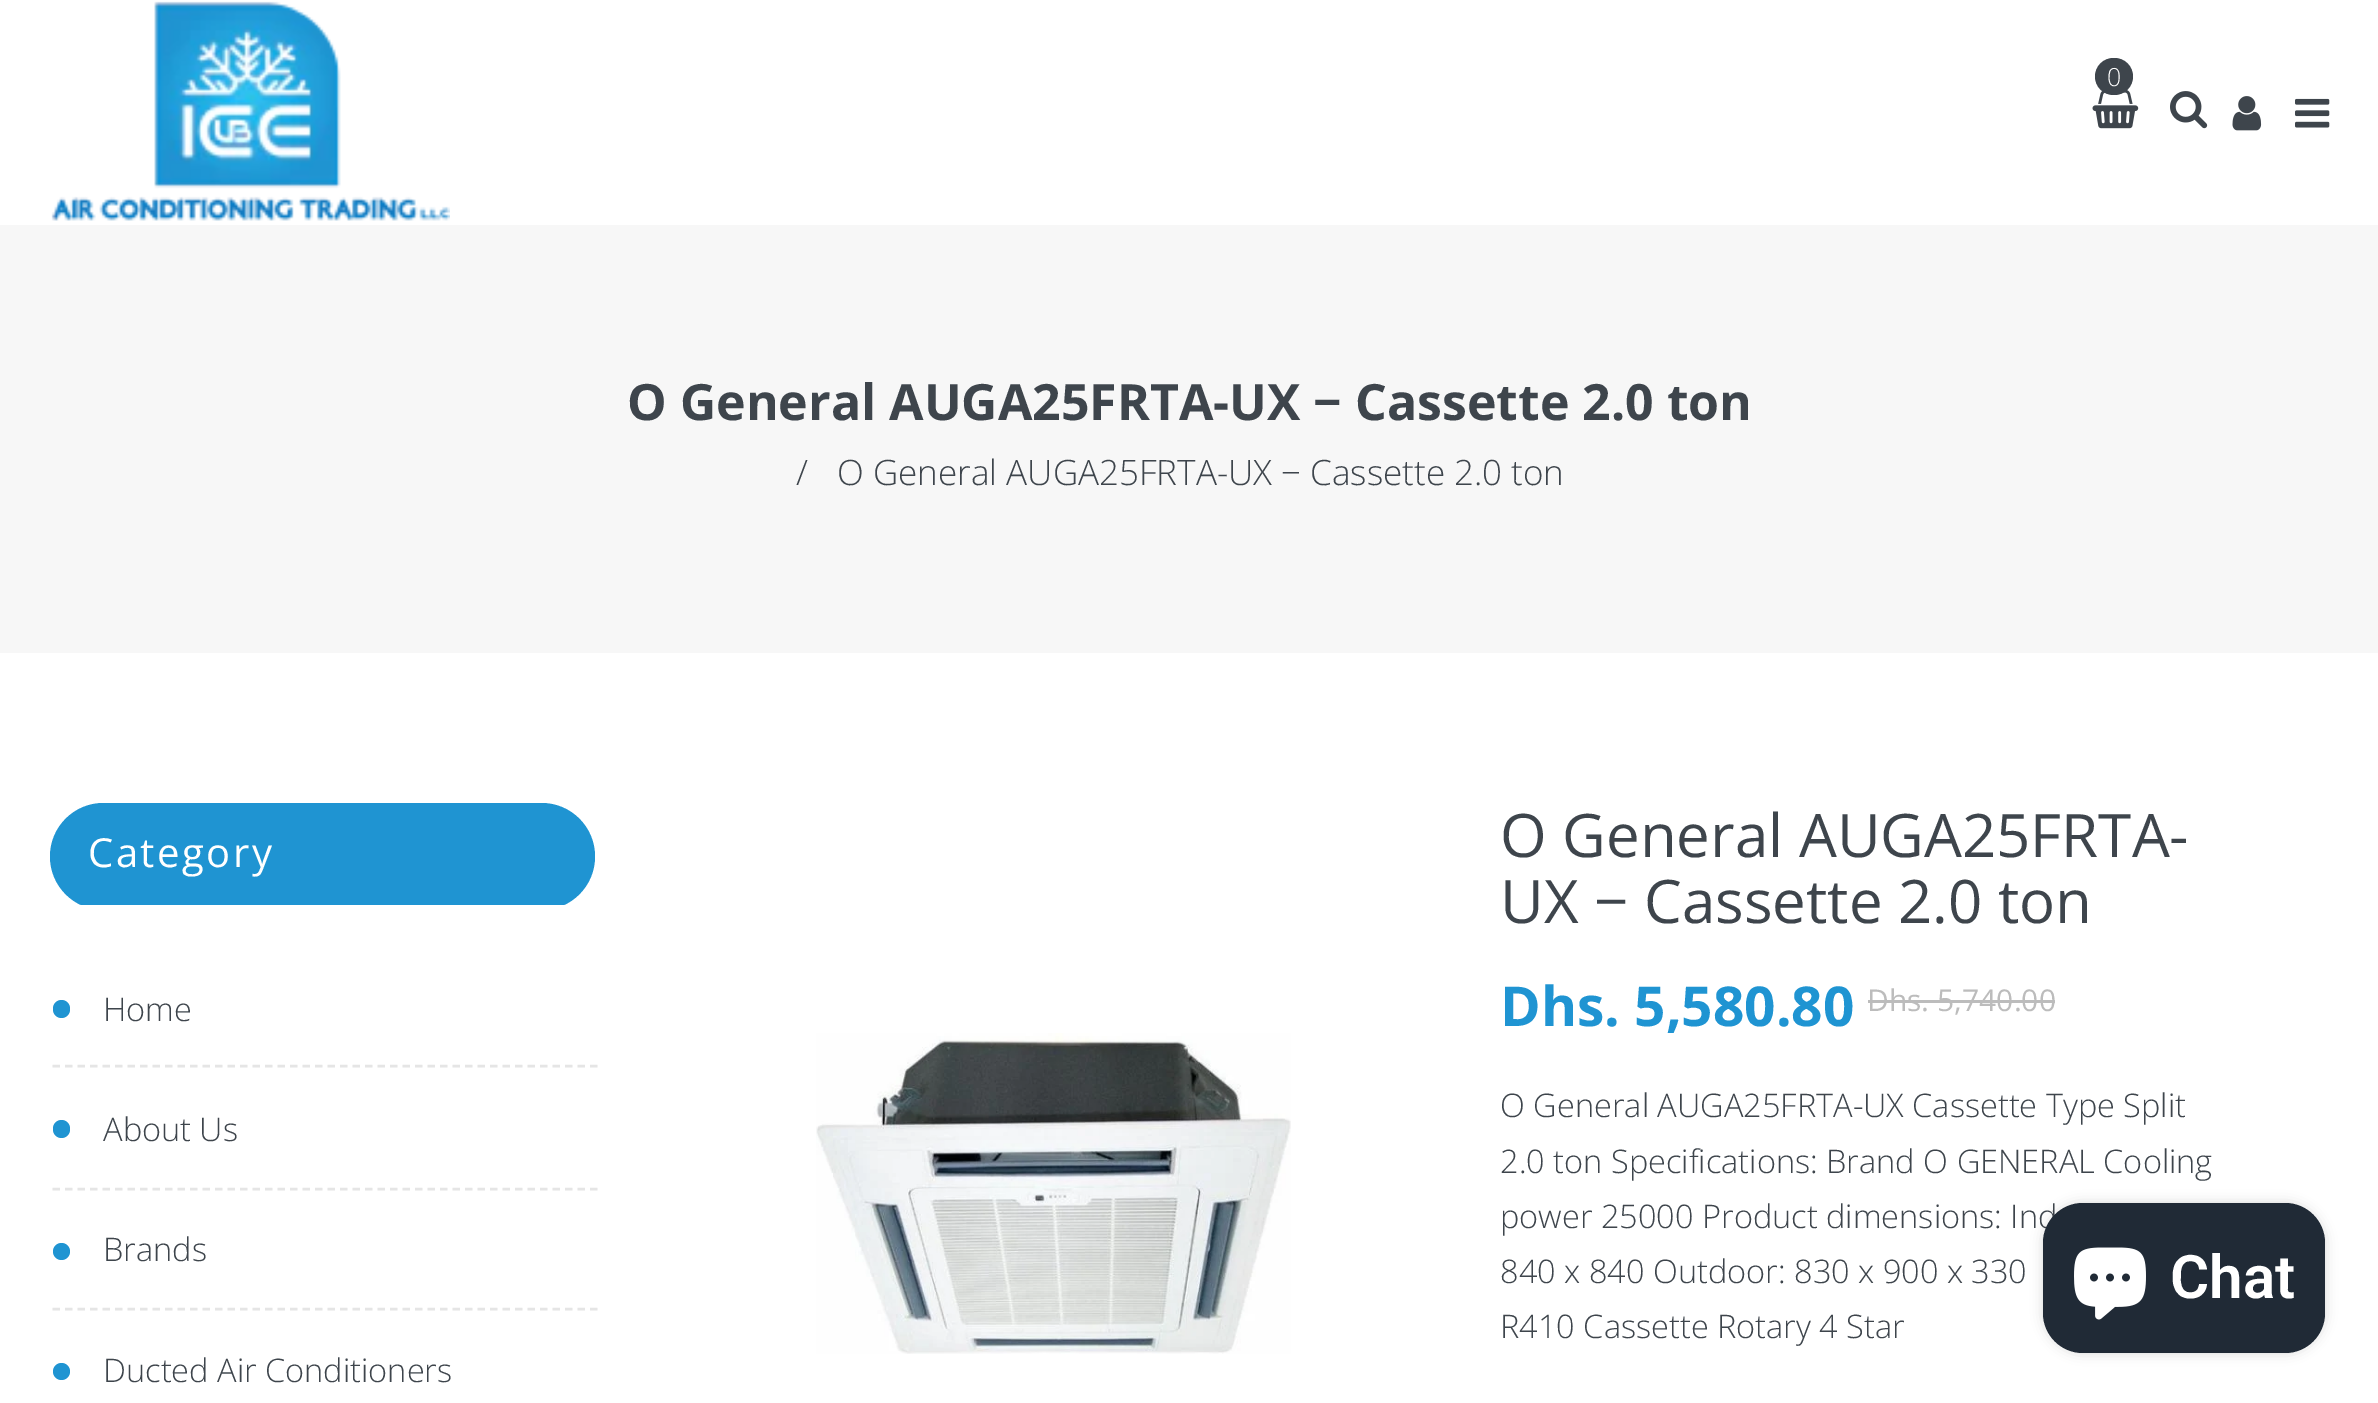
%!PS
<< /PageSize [2378 1403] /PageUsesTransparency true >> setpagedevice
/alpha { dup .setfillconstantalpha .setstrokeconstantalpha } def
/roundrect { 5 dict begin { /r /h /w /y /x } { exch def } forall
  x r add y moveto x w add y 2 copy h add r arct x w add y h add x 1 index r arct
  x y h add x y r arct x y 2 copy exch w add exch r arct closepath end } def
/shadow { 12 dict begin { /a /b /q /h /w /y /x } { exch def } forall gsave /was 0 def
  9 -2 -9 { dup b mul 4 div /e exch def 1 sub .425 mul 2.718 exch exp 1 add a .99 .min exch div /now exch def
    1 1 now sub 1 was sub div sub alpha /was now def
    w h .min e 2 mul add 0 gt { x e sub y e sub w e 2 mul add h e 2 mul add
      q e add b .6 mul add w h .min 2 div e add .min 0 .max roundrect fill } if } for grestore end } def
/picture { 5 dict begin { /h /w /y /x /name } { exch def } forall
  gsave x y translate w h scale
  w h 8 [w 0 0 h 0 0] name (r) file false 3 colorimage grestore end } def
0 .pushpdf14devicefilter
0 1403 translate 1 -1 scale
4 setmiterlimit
1 setgray
0 0 2378 1403 rectfill
(img1.rgb) 51 1 399 220 picture
(img2.rgb) 2092 90 47 39 picture
0.243 0.271 0.298 setrgbcolor
2095 58 38 37 18.5 roundrect fill
/OpenSans-Light [25 0 0 -25 0 0] selectfont
1 setgray
2107 86 moveto (0) show
(img3.rgb) 2170 91 38 38 picture
(img4.rgb) 2232 96 30 35 picture
(img5.rgb) 2295 98 35 30 picture
0.969 setgray
0 225 2378 428 rectfill
/OpenSans-Bold [50 0 0 -50 0 0] selectfont
0.243 0.271 0.298 setrgbcolor
627 420 moveto (O General AUGA25FRTA-UX − Cassette 2.0 ton) show
/OpenSans-Light [35 0 0 -35 0 0] selectfont
796 485 moveto (/) show
837 485 moveto (O General AUGA25FRTA-UX − Cassette 2.0 ton) show
0.122 0.58 0.824 setrgbcolor
50 803 545 107 53.5 roundrect fill
1 setgray
78 905 490 5 rectfill
/OpenSans-Regular [40 0 0 -40 0 0] selectfont
88 867 moveto 2.5 0 (Category) ashow
0.898 setgray
2.5 setlinewidth
[7.5 5] 0 setdash
newpath 52.5 1066 moveto 597.5 1066 lineto stroke
0.122 0.58 0.824 setrgbcolor
53 1000 17 18 8.5 roundrect fill
/OpenSans-Light [32.5 0 0 -32.5 0 0] selectfont
0.243 0.271 0.298 setrgbcolor
103 1021 moveto (Home) show
0.898 setgray
newpath 52.5 1189 moveto 597.5 1189 lineto stroke
0.122 0.58 0.824 setrgbcolor
53 1120 17 18 8.5 roundrect fill
0.243 0.271 0.298 setrgbcolor
103 1141 moveto (About Us) show
0.898 setgray
newpath 52.5 1309 moveto 597.5 1309 lineto stroke
0.122 0.58 0.824 setrgbcolor
newpath 61.5 1251.5 8.5 0 360 arc closepath fill
0.243 0.271 0.298 setrgbcolor
103 1261 moveto (Brands) show
0.122 0.58 0.824 setrgbcolor
newpath 61.5 1371.5 8.5 0 360 arc closepath fill
0.243 0.271 0.298 setrgbcolor
103 1382 moveto (Ducted Air Conditioners) show
(img6.rgb) 816 1033 475 321 picture
/OpenSans-Regular [60 0 0 -60 0 0] selectfont
1500 857 moveto (O General AUGA25FRTA-) show
1500 923 moveto (UX − Cassette 2.0 ton) show
/OpenSans-Bold [55 0 0 -55 0 0] selectfont
0.122 0.58 0.824 setrgbcolor
1500 1026 moveto (Dhs. 5,580.80) show
/OpenSans-Regular [30 0 0 -30 0 0] selectfont
0.737 setgray
1867 1011 moveto (Dhs. 5,740.00) show
1868 1000 187 3 rectfill
/OpenSans-Light [32.5 0 0 -32.5 0 0] selectfont
0.243 0.271 0.298 setrgbcolor
1500 1117 moveto (O General AUGA25FRTA-UX Cassette Type Split) show
1500 1173 moveto (2.0 ton Specifications: Brand O GENERAL Cooling) show
1500 1228 moveto (power 25000 Product dimensions: Ind) show
1500 1283 moveto (840 x 840 Outdoor: 830 x 900 x 330) show
1500 1338 moveto (R410 Cassette Rotary 4 Star) show
0 setgray
2043 1203 282 150 40 6 0.15 shadow
0.125 0.165 0.212 setrgbcolor
2043 1203 282 150 40 roundrect fill
(img7.rgb) 2074 1247 72 73 picture
/Roboto-SemiBold [60 0 0 -60 0 0] selectfont
1 setgray
2170 1298 moveto (Chat) show
.poppdf14devicefilter showpage
